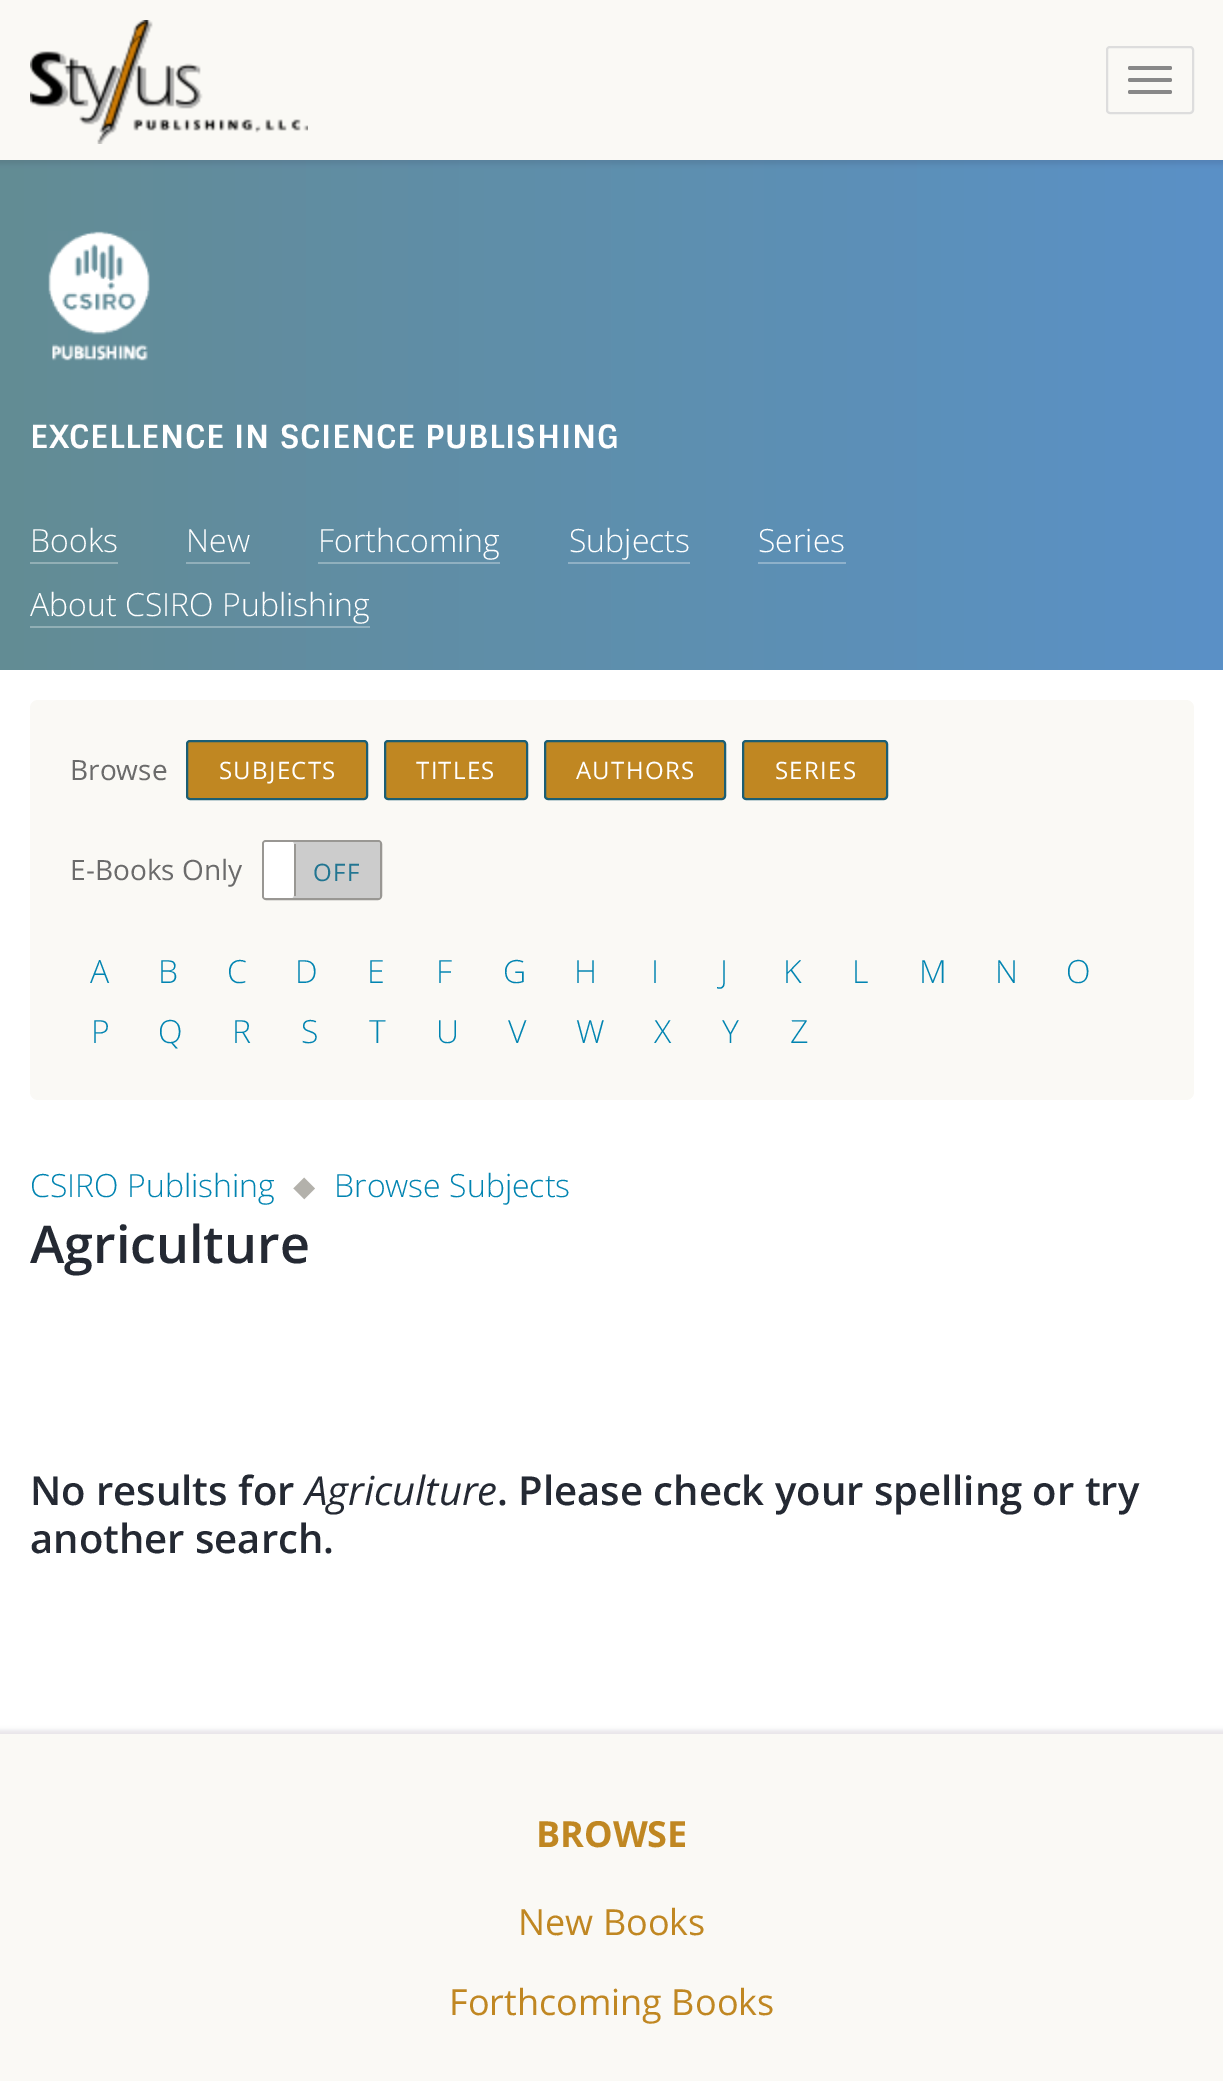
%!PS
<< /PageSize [1223 2081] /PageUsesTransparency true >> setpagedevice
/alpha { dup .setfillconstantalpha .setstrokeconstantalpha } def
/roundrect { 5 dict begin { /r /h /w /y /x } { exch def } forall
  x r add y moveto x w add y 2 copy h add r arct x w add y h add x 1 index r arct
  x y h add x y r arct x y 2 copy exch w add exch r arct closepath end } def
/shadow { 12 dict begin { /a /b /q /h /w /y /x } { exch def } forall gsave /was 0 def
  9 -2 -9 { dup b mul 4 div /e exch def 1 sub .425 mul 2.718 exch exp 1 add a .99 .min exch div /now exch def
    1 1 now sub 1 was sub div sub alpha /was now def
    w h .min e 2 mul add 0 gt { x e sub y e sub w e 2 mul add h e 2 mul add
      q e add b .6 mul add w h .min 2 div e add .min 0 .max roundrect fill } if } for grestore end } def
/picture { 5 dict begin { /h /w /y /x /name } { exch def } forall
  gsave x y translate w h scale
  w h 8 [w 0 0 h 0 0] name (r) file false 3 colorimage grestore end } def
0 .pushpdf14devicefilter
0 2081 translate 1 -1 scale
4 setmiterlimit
1 setgray
0 0 1223 2081 rectfill
gsave newpath 0 160 moveto 1223 160 lineto 1223 670 lineto 0 670 lineto closepath clip newpath
<< /ShadingType 2 /ColorSpace /DeviceRGB /Coords [0 415 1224 415] /Extend [true true] /Function << /FunctionType 2 /Domain [0 1] /C0 [0.388 0.549 0.58] /C1 [0.353 0.569 0.78] /N 1 >> >> shfill grestore
0.078 0.039 0.157 setrgbcolor
-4 -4 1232 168 0 2 0.1 shadow
0.98 0.976 0.961 setrgbcolor
0 0 1223 160 rectfill
(img1.rgb) 30 20 278 124 picture
0.867 setgray
2 setlinewidth
1107 47 86 66 3 roundrect stroke
0.533 setgray
1128 66 44 4 2 roundrect fill
1128 78 44 4 2 roundrect fill
1128 90 44 4 2 roundrect fill
gsave newpath 30 626 moveto 370 626 lineto 370 628 lineto 30 628 lineto closepath clip newpath
<< /ShadingType 2 /ColorSpace /DeviceRGB /Coords [0 415 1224 415] /Extend [true true] /Function << /FunctionType 2 /Domain [0 1] /C0 [0.573 0.686 0.706] /C1 [0.549 0.698 0.847] /N 1 >> >> shfill grestore
gsave newpath 758 562 moveto 846 562 lineto 846 564 lineto 758 564 lineto closepath clip newpath
<< /ShadingType 2 /ColorSpace /DeviceRGB /Coords [0 415 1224 415] /Extend [true true] /Function << /FunctionType 2 /Domain [0 1] /C0 [0.573 0.686 0.706] /C1 [0.549 0.698 0.847] /N 1 >> >> shfill grestore
gsave newpath 568 562 moveto 690 562 lineto 690 564 lineto 568 564 lineto closepath clip newpath
<< /ShadingType 2 /ColorSpace /DeviceRGB /Coords [0 415 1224 415] /Extend [true true] /Function << /FunctionType 2 /Domain [0 1] /C0 [0.573 0.686 0.706] /C1 [0.549 0.698 0.847] /N 1 >> >> shfill grestore
gsave newpath 318 562 moveto 500 562 lineto 500 564 lineto 318 564 lineto closepath clip newpath
<< /ShadingType 2 /ColorSpace /DeviceRGB /Coords [0 415 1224 415] /Extend [true true] /Function << /FunctionType 2 /Domain [0 1] /C0 [0.573 0.686 0.706] /C1 [0.549 0.698 0.847] /N 1 >> >> shfill grestore
gsave newpath 30 562 moveto 118 562 lineto 118 564 lineto 30 564 lineto closepath clip newpath
<< /ShadingType 2 /ColorSpace /DeviceRGB /Coords [0 415 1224 415] /Extend [true true] /Function << /FunctionType 2 /Domain [0 1] /C0 [0.573 0.686 0.706] /C1 [0.549 0.698 0.847] /N 1 >> >> shfill grestore
(img2.rgb) 48 231 102 130 picture
/Sintony-Bold [32 0 0 -32 0 0] selectfont
1 setgray
30 448 moveto 0.8 0 (EXCELLENCE IN SCIENCE PUBLISHING) ashow
/OpenSans-Light [32 0 0 -32 0 0] selectfont
30 552 moveto (Books) show
186 552 moveto (New) show
0.569 0.686 0.729 setrgbcolor
186 562 64 2 rectfill
1 setgray
318 552 moveto (Forthcoming) show
569 552 moveto (Subjects) show
758 552 moveto (Series) show
30 616 moveto (About CSIRO Publishing) show
0.98 0.976 0.961 setrgbcolor
30 700 1164 400 8 roundrect fill
/OpenSans-Regular [28 0 0 -28 0 0] selectfont
0.42 setgray
70 780 moveto (Browse) show
0.753 0.529 0.133 setrgbcolor
187 741 180 58 3 roundrect gsave fill grestore
0.106 0.369 0.455 setrgbcolor
stroke
/OpenSans-Regular [24 0 0 -24 0 0] selectfont
1 setgray
219 779 moveto 1.25 0 (SUBJECTS) ashow
0.753 0.529 0.133 setrgbcolor
385 741 142 58 3 roundrect gsave fill grestore
0.106 0.369 0.455 setrgbcolor
stroke
1 setgray
416 779 moveto 1.25 0 (TITLES) ashow
0.753 0.529 0.133 setrgbcolor
545 741 180 58 3 roundrect gsave fill grestore
0.106 0.369 0.455 setrgbcolor
stroke
1 setgray
576 779 moveto 1.25 0 (AUTHORS) ashow
0.753 0.529 0.133 setrgbcolor
743 741 144 58 3 roundrect gsave fill grestore
0.106 0.369 0.455 setrgbcolor
stroke
1 setgray
775 779 moveto 1.25 0 (SERIES) ashow
/OpenSans-Regular [28 0 0 -28 0 0] selectfont
0.42 setgray
70 880 moveto (E-Books Only) show
0.6 0.592 0.576 setrgbcolor
263 841 118 58 3 roundrect stroke
0.8 setgray
264 842 116 56 2 roundrect fill
1 setgray
newpath 266 842 moveto 264 843 lineto 264 897 lineto 266 898 lineto 292 898 lineto 295 897 294 889 294 886 curveto 294 854 lineto 294 849 295 842 292 842 curveto closepath fill
0.6 0.592 0.576 setrgbcolor
294 844 2 52 rectfill
/OpenSans-Regular [24 0 0 -24 0 0] selectfont
0.133 0.459 0.569 setrgbcolor
313 881 moveto 1.25 0 (OFF) ashow
/OpenSans-Light [32 0 0 -32 0 0] selectfont
0.004 0.518 0.694 setrgbcolor
90 983 moveto (A) show
158 983 moveto (B) show
227 983 moveto (C) show
295 983 moveto (D) show
367 983 moveto (E) show
436 983 moveto (F) show
503 983 moveto (G) show
574 983 moveto (H) show
651 983 moveto (I) show
720 983 moveto (J) show
783 983 moveto (K) show
852 983 moveto (L) show
919 983 moveto (M) show
995 983 moveto (N) show
1066 983 moveto (O) show
91 1043 moveto (P) show
158 1043 moveto (Q) show
232 1043 moveto (R) show
301 1043 moveto (S) show
369 1043 moveto (T) show
436 1043 moveto (U) show
508 1043 moveto (V) show
576 1043 moveto (W) show
654 1043 moveto (X) show
722 1043 moveto (Y) show
790 1043 moveto (Z) show
30 1197 moveto (CSIRO Publishing) show
/FreeSans-Regular [32 0 0 -32 0 0] selectfont
0.702 0.694 0.671 setrgbcolor
293 1197 moveto (⬥) show
/OpenSans-Light [32 0 0 -32 0 0] selectfont
0.004 0.518 0.694 setrgbcolor
334 1197 moveto (Browse Subjects) show
/OpenSans-SemiBold [52 0 0 -52 0 0] selectfont
0.141 0.161 0.2 setrgbcolor
30 1263 moveto (Agriculture) show
/OpenSans-SemiBold [40 0 0 -40 0 0] selectfont
30 1505 moveto (No results for) show
/OpenSans-Italic [40 0 0 -40 0 0] selectfont
305 1505 moveto (Agriculture) show
/OpenSans-SemiBold [40 0 0 -40 0 0] selectfont
497 1505 moveto (. Please check your spelling or try) show
30 1553 moveto (another search.) show
0.078 0.039 0.157 setrgbcolor
-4 1730 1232 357 0 2 0.1 shadow
0.98 0.976 0.961 setrgbcolor
0 1734 1223 347 rectfill
/OpenSans-Bold [36 0 0 -36 0 0] selectfont
0.753 0.529 0.133 setrgbcolor
536 1847 moveto (BROWSE) show
/OpenSans-Regular [36 0 0 -36 0 0] selectfont
518 1935 moveto (New Books) show
449 2015 moveto (Forthcoming Books) show
.poppdf14devicefilter showpage
